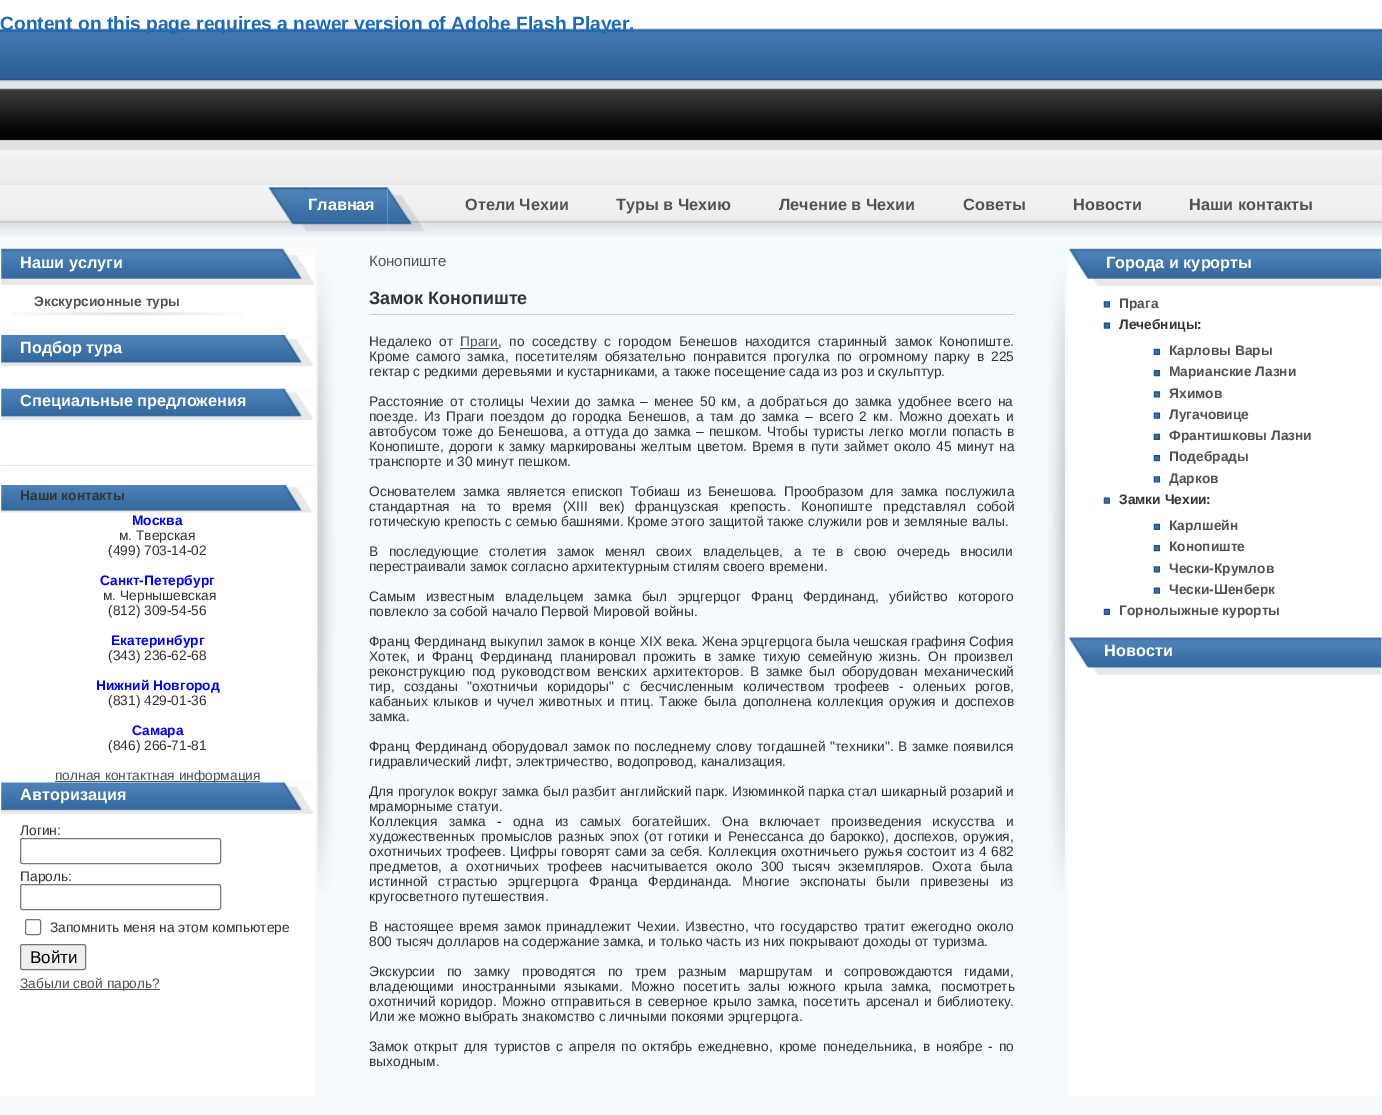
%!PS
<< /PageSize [1382 1115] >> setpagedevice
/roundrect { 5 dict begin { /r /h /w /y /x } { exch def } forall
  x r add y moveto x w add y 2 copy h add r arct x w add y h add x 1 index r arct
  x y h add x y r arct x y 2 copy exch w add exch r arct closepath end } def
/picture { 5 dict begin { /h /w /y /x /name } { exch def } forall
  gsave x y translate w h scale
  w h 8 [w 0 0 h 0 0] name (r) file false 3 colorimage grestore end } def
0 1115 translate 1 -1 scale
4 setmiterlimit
1 setgray
0 0 1382 1115 rectfill
(img1.rgb) 0 28 1382 157 picture
0.114 0.416 0.725 setrgbcolor
0 31 635 1 rectfill
/LiberationSans-Bold [19.2 0 0 -19.2 0 0] selectfont
0 30 moveto (Content on this page requires a newer version of Adobe Flash Player.) show
0.961 0.98 1 setrgbcolor
0 237 1382 11 rectfill
(img2.rgb) 0 185 1382 52 picture
(img3.rgb) 268 187 39 43 picture
(img4.rgb) 387 187 38 45 picture
(img5.rgb) 305 187 83 45 picture
/LiberationSans-Bold [16.25 0 0 -16.25 0 0] selectfont
1 setgray
308 210 moveto (Главная) show
0.322 setgray
465 210 moveto (Отели Чехии) show
616 210 moveto (Туры в Чехию) show
779 210 moveto (Лечение в Чехии) show
963 210 moveto (Советы) show
1073 210 moveto (Новости) show
1189 210 moveto (Наши контакты) show
0.961 0.98 1 setrgbcolor
315 248 753 848 rectfill
(img6.rgb) 317 271 18 623 picture
(img7.rgb) 1 248 313 37 picture
1 setgray
20 268 moveto (Наши услуги) show
(img8.rgb) 11 312 232 4 picture
/LiberationSans-Bold [13.75 0 0 -13.75 0 0] selectfont
0.322 setgray
34 306 moveto (Экскурсионные туры) show
(img9.rgb) 1 335 313 32 picture
/LiberationSans-Bold [16.25 0 0 -16.25 0 0] selectfont
1 setgray
20 353 moveto (Подбор тура) show
(img10.rgb) 1 388 313 32 picture
20 406 moveto (Специальные предложения) show
0.898 setgray
1 465 313 1 rectfill
(img11.rgb) 1 485 312 28 picture
/LiberationSans-Bold [13.75 0 0 -13.75 0 0] selectfont
0.2 setgray
20 500 moveto (Наши контакты) show
0 0 1 setrgbcolor
132 525 moveto (Москва) show
/LiberationSans-Regular [13.75 0 0 -13.75 0 0] selectfont
0.2 setgray
119 540 moveto (м. Тверская) show
108 555 moveto (\(499\) 703-14-02) show
/LiberationSans-Bold [13.75 0 0 -13.75 0 0] selectfont
0 0 1 setrgbcolor
100 585 moveto (Санкт-Петербург) show
/LiberationSans-Regular [13.75 0 0 -13.75 0 0] selectfont
0.2 setgray
103 600 moveto (м. Чернышевская) show
108 615 moveto (\(812\) 309-54-56) show
/LiberationSans-Bold [13.75 0 0 -13.75 0 0] selectfont
0 0 1 setrgbcolor
111 645 moveto (Екатеринбург) show
/LiberationSans-Regular [13.75 0 0 -13.75 0 0] selectfont
0.2 setgray
108 660 moveto (\(343\) 236-62-68) show
/LiberationSans-Bold [13.75 0 0 -13.75 0 0] selectfont
0 0 1 setrgbcolor
96 690 moveto (Нижний Новгород) show
/LiberationSans-Regular [13.75 0 0 -13.75 0 0] selectfont
0.2 setgray
108 705 moveto (\(831\) 429-01-36) show
/LiberationSans-Bold [13.75 0 0 -13.75 0 0] selectfont
0 0 1 setrgbcolor
132 735 moveto (Самара) show
/LiberationSans-Regular [13.75 0 0 -13.75 0 0] selectfont
0.2 setgray
108 750 moveto (\(846\) 266-71-81) show
0.322 setgray
55 781 205 1 rectfill
(img12.rgb) 1 782 313 32 picture
55 780 moveto (полная контактная информация) show
/LiberationSans-Bold [16.25 0 0 -16.25 0 0] selectfont
1 setgray
20 800 moveto (Авторизация) show
/LiberationSans-Regular [13.75 0 0 -13.75 0 0] selectfont
0.2 setgray
20 835 moveto (Логин:) show
0.463 setgray
20.5 838.5 200 25 2 roundrect stroke
0.2 setgray
20 881 moveto (Пароль:) show
0.463 setgray
20.5 884.5 200 25 2 roundrect stroke
25.5 919.5 15 15 2 roundrect stroke
0.2 setgray
50 932 moveto (Запомнить меня на этом компьютере) show
0.937 setgray
20.5 944.5 65 25 2 roundrect gsave fill grestore
0.463 setgray
stroke
/LiberationSans-Regular [17 0 0 -17 0 0] selectfont
0 setgray
30 963 moveto (Войти) show
0.322 setgray
20 989 140 1 rectfill
/LiberationSans-Regular [13.75 0 0 -13.75 0 0] selectfont
20 988 moveto (Забыли свой пароль?) show
/LiberationSans-Regular [15 0 0 -15 0 0] selectfont
369 266 moveto (Конопиште) show
0.8 setgray
369 314 645 1 rectfill
/LiberationSans-Bold [17.9 0 0 -17.9 0 0] selectfont
0.2 setgray
369 304 moveto (Замок Конопиште) show
/LiberationSans-Regular [13.75 0 0 -13.75 0 0] selectfont
369 346 moveto 3.75 0 32 (Недалеко от) widthshow
0.322 setgray
460 348 39 1 rectfill
460 346 moveto (Праги) show
0.2 setgray
498 346 moveto 3.75 0 32 (, по соседству с городом Бенешов находится старинный замок Конопиште.) widthshow
369 361 moveto 3.1 0 32 (Кроме самого замка, посетителям обязательно понравится прогулка по огромному парку в 225) widthshow
369 376 moveto (гектар с редкими деревьями и кустарниками, а также посещение сада из роз и скульптур.) show
369 406 moveto 2.25 0 32 (Расстояние от столицы Чехии до замка – менее 50 км, а добраться до замка удобнее всего на) widthshow
369 421 moveto 2.4 0 32 (поезде. Из Праги поездом до городка Бенешов, а там до замка – всего 2 км. Можно доехать и) widthshow
369 436 moveto 1.25 0 32 (автобусом тоже до Бенешова, а оттуда до замка – пешком. Чтобы туристы легко могли попасть в) widthshow
369 451 moveto 1.25 0 32 (Конопиште, дороги к замку маркированы желтым цветом. Время в пути займет около 45 минут на) widthshow
369 466 moveto (транспорте и 30 минут пешком.) show
369 496 moveto 3.1 0 32 (Основателем замка является епископ Тобиаш из Бенешова. Прообразом для замка послужила) widthshow
369 511 moveto 7.25 0 32 (стандартная на то время \(XIII век\) французская крепость. Конопиште представлял собой) widthshow
369 526 moveto (готическую крепость с семью башнями. Кроме этого защитой также служили ров и земляные валы.) show
369 556 moveto 6.75 0 32 (В последующие столетия замок менял своих владельцев, а те в свою очередь вносили) widthshow
369 571 moveto (перестраивали замок согласно архитектурным стилям своего времени.) show
369 601 moveto 6.5 0 32 (Самым известным владельцем замка был эрцгерцог Франц Фердинанд, убийство которого) widthshow
369 616 moveto (повлекло за собой начало Первой Мировой войны.) show
369 646 moveto (Франц Фердинанд выкупил замок в конце XIX века. Жена эрцгерцога была чешская графиня София) show
369 661 moveto 3.4 0 32 (Хотек, и Франц Фердинанд планировал прожить в замке тихую семейную жизнь. Он произвел) widthshow
369 676 moveto 2.75 0 32 (реконструкцию под руководством венских архитекторов. В замке был оборудован механический) widthshow
369 691 moveto 5.5 0 32 (тир, созданы "охотничьи коридоры" с бесчисленным количеством трофеев - оленьих рогов,) widthshow
369 706 moveto 1.75 0 32 (кабаньих клыков и чучел животных и птиц. Также была дополнена коллекция оружия и доспехов) widthshow
369 721 moveto (замка.) show
369 751 moveto 0.75 0 32 (Франц Фердинанд оборудовал замок по последнему слову тогдашней "техники". В замке появился) widthshow
369 766 moveto (гидравлический лифт, электричество, водопровод, канализация.) show
369 796 moveto (Для прогулок вокруг замка был разбит английский парк. Изюминкой парка стал шикарный розарий и) show
369 811 moveto (мраморныме статуи.) show
369 826 moveto 7.4 0 32 (Коллекция замка - одна из самых богатейших. Она включает произведения искусства и) widthshow
369 841 moveto 1.75 0 32 (художественных промыслов разных эпох \(от готики и Ренессанса до барокко\), доспехов, оружия,) widthshow
369 856 moveto 0.75 0 32 (охотничьих трофеев. Цифры говорят сами за себя. Коллекция охотничьего ружья состоит из 4 682) widthshow
369 871 moveto 4.5 0 32 (предметов, а охотничьих трофеев насчитывается около 300 тысяч экземпляров. Охота была) widthshow
369 886 moveto 6.5 0 32 (истинной страстью эрцгерцога Франца Фердинанда. Многие экспонаты были привезены из) widthshow
369 901 moveto (кругосветного путешествия.) show
369 931 moveto 1.6 0 32 (В настоящее время замок принадлежит Чехии. Известно, что государство тратит ежегодно около) widthshow
369 946 moveto (800 тысяч долларов на содержание замка, и только часть из них покрывают доходы от туризма.) show
369 976 moveto 8.25 0 32 (Экскурсии по замку проводятся по трем разным маршрутам и сопровождаются гидами,) widthshow
369 991 moveto 4.5 0 32 (владеющими иностранными языками. Можно посетить залы южного крыла замка, посмотреть) widthshow
369 1006 moveto 1.4 0 32 (охотничий коридор. Можно отправиться в северное крыло замка, посетить арсенал и библиотеку.) widthshow
369 1021 moveto (Или же можно выбрать знакомство с личными покоями эрцгерцога.) show
369 1051 moveto 2.25 0 32 (Замок открыт для туристов с апреля по октябрь ежедневно, кроме понедельника, в ноябре - по) widthshow
369 1066 moveto (выходным.) show
(img13.rgb) 1048 271 17 623 picture
(img14.rgb) 1068 248 314 39 picture
/LiberationSans-Bold [16.25 0 0 -16.25 0 0] selectfont
1 setgray
1106 268 moveto (Города и курорты) show
(img15.rgb) 1103 301 7 7 picture
/LiberationSans-Bold [13.75 0 0 -13.75 0 0] selectfont
0.322 setgray
1119 308 moveto (Прага) show
(img16.rgb) 1103 322 7 7 picture
0.2 setgray
1119 329 moveto (Лечебницы:) show
(img17.rgb) 1153 348 7 7 picture
0.322 setgray
1169 355 moveto (Карловы Вары) show
(img18.rgb) 1153 370 7 7 picture
1169 376 moveto (Марианские Лазни) show
(img15.rgb) 1153 391 7 7 picture
1169 398 moveto (Яхимов) show
(img16.rgb) 1153 412 7 7 picture
1169 419 moveto (Лугачовице) show
(img17.rgb) 1153 433 7 7 picture
1169 440 moveto (Франтишковы Лазни) show
(img18.rgb) 1153 455 7 7 picture
1169 461 moveto (Подебрады) show
(img15.rgb) 1153 476 7 7 picture
1169 483 moveto (Дарков) show
(img16.rgb) 1103 497 7 7 picture
0.2 setgray
1119 504 moveto (Замки Чехии:) show
(img17.rgb) 1153 523 7 7 picture
0.322 setgray
1169 530 moveto (Карлшейн) show
(img18.rgb) 1153 545 7 7 picture
1169 551 moveto (Конопиште) show
(img15.rgb) 1153 566 7 7 picture
1169 573 moveto (Чески-Крумлов) show
(img19.rgb) 1153 587 7 7 picture
1169 594 moveto (Чески-Шенберк) show
(img17.rgb) 1103 608 7 7 picture
1119 615 moveto (Горнолыжные курорты) show
(img20.rgb) 1068 637 314 38 picture
/LiberationSans-Bold [16.25 0 0 -16.25 0 0] selectfont
1 setgray
1104 656 moveto (Новости) show
0.961 0.98 1 setrgbcolor
0 1096 1382 19 rectfill
showpage
